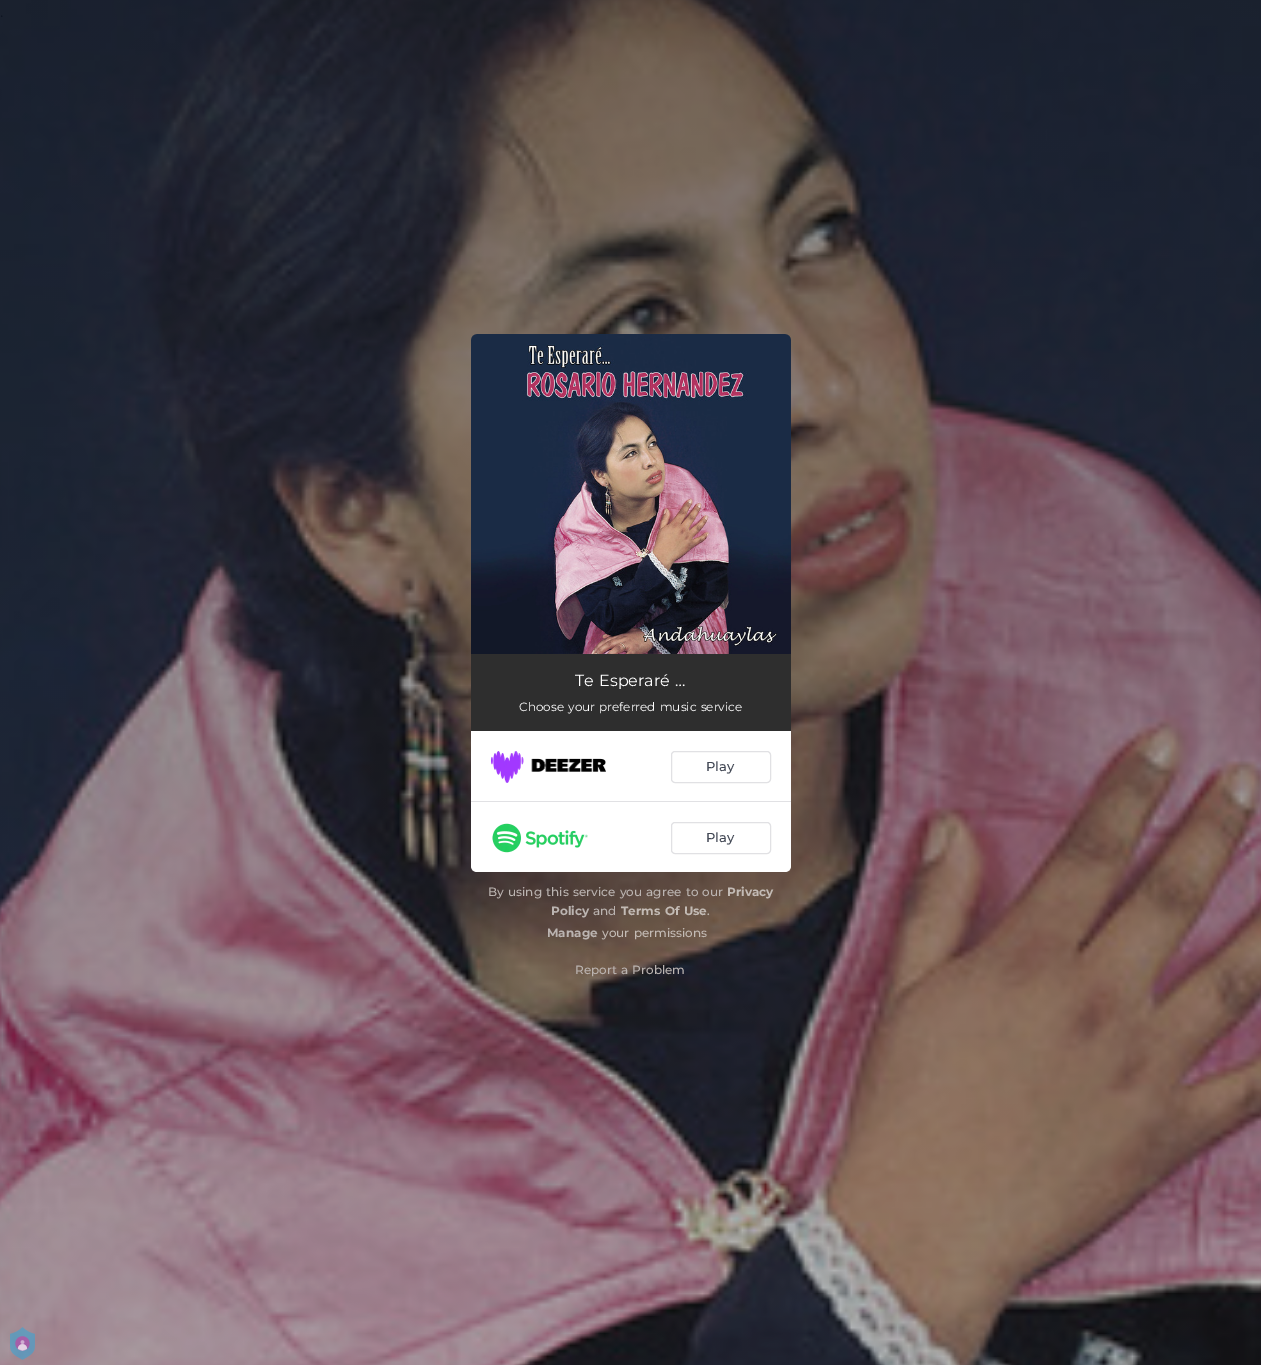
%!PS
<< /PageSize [1261 1365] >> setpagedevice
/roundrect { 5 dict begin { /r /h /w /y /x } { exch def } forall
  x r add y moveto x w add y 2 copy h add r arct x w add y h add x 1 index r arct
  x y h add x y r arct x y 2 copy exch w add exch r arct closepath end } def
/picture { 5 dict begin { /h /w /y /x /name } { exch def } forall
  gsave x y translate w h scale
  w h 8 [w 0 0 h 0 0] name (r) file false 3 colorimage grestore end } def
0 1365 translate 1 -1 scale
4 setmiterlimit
1 setgray
0 0 1261 1365 rectfill
(img1.rgb) 0 0 1261 1365 picture
(img2.rgb) 471 334 320 320 picture
/Montserrat-Regular [13 0 0 -13 0 0] selectfont
0.537 0.318 0.439 setrgbcolor
614 389 moveto 1 0 32 (!) widthshow
0.18 setgray
471 654 320 77 rectfill
/Montserrat-Regular [16 0 0 -16 0 0] selectfont
1 setgray
575 686 moveto 1 0 32 (Te Esperaré …) widthshow
/Montserrat-Regular [12 0 0 -12 0 0] selectfont
519 711 moveto 1 0 32 (Choose your preferred music service) widthshow
newpath 471 731 moveto 791 731 lineto 791 866 lineto 791 869.5 788.5 872 785 872 curveto 477 872 lineto 473.5 872 471 869.5 471 866 curveto closepath fill
0.882 0.882 0.894 setrgbcolor
471 801 320 1 rectfill
(img3.rgb) 491 751 115 32 picture
671.5 751.5 99 31 3.5 roundrect stroke
/Montserrat-Medium [13 0 0 -13 0 0] selectfont
0.255 0.278 0.329 setrgbcolor
706 771 moveto (Play) show
(img4.rgb) 492 823 96 30 picture
0.882 0.882 0.894 setrgbcolor
671.5 822.5 99 31 3.5 roundrect stroke
0.255 0.278 0.329 setrgbcolor
706 842 moveto (Play) show
/Montserrat-Medium [12 0 0 -12 0 0] selectfont
0.733 0.706 0.694 setrgbcolor
488 896 moveto 1 0 32 (By using this service you agree to our) widthshow
/Montserrat-Bold [12 0 0 -12 0 0] selectfont
0.765 0.733 0.71 setrgbcolor
727 896 moveto (Privacy) show
0.733 0.706 0.694 setrgbcolor
551 915 moveto (Policy) show
/Montserrat-Medium [12 0 0 -12 0 0] selectfont
593 915 moveto (and) show
/Montserrat-Bold [12 0 0 -12 0 0] selectfont
0.765 0.733 0.71 setrgbcolor
621 915 moveto 1 0 32 (Terms Of Use) widthshow
/Montserrat-Medium [12 0 0 -12 0 0] selectfont
707 915 moveto (.) show
/Montserrat-Bold [12 0 0 -12 0 0] selectfont
0.733 0.706 0.694 setrgbcolor
547 937 moveto (Manage) show
/Montserrat-Medium [12 0 0 -12 0 0] selectfont
0.765 0.733 0.71 setrgbcolor
602 937 moveto 1 0 32 (your permissions) widthshow
0.733 0.706 0.694 setrgbcolor
575 974 moveto 1 0 32 (Report a Problem) widthshow
(img5.rgb) 10 1327 25 33 picture
showpage
